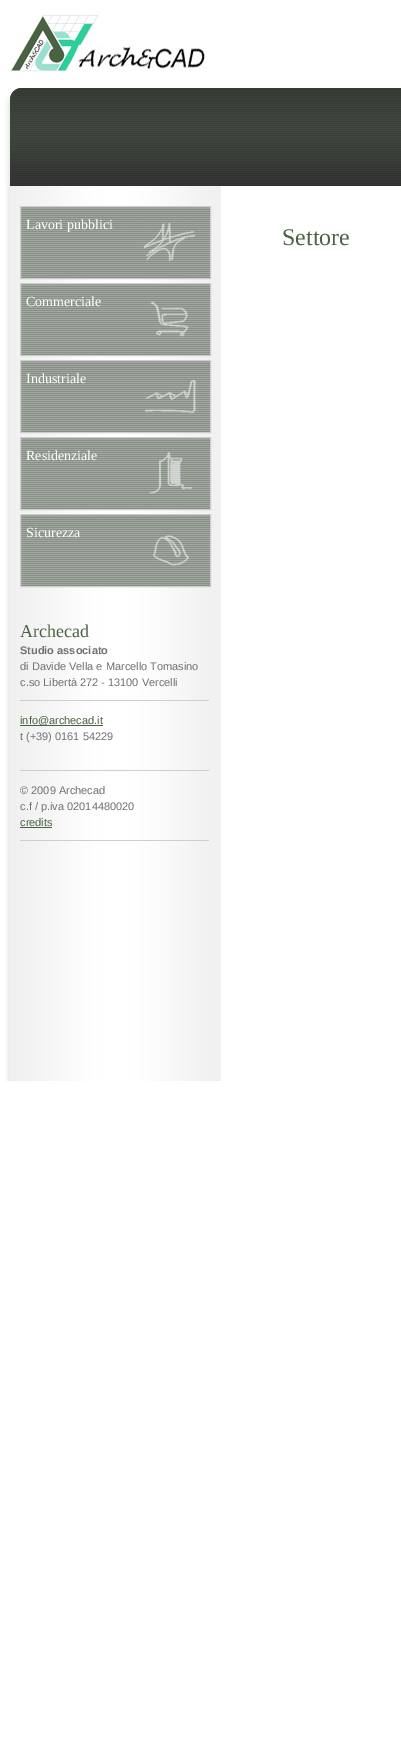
%!PS
<< /PageSize [401 1738] >> setpagedevice
/picture { 5 dict begin { /h /w /y /x /name } { exch def } forall
  gsave x y translate w h scale
  w h 8 [w 0 0 h 0 0] name (r) file false 3 colorimage grestore end } def
0 1738 translate 1 -1 scale
4 setmiterlimit
1 setgray
0 0 401 1738 rectfill
(img1.rgb) 10 15 197 57 picture
0.192 setgray
20 185 381 1 rectfill
(img2.rgb) 20 88 381 97 picture
(img3.rgb) 4 88 16 98 picture
(img4.rgb) 6 186 215 895 picture
(img5.rgb) 21 207 189 71 picture
0.808 setgray
20.5 206.5 190 72 rectstroke
/LiberationSerif-Regular [14 0 0 -14 0 0] selectfont
1 setgray
26 229 moveto (Lavori pubblici) show
(img6.rgb) 143 223 53 39 picture
(img5.rgb) 21 284 189 71 picture
0.808 setgray
20.5 283.5 190 72 rectstroke
1 setgray
26 306 moveto (Commerciale) show
(img7.rgb) 151 301 38 36 picture
(img5.rgb) 21 361 189 71 picture
0.808 setgray
20.5 360.5 190 72 rectstroke
1 setgray
26 383 moveto (Industriale) show
(img8.rgb) 145 380 51 34 picture
(img5.rgb) 21 438 189 71 picture
0.808 setgray
20.5 437.5 190 72 rectstroke
1 setgray
26 460 moveto (Residenziale) show
(img9.rgb) 149 452 44 42 picture
(img5.rgb) 21 515 189 71 picture
0.808 setgray
20.5 514.5 190 72 rectstroke
1 setgray
26 537 moveto (Sicurezza) show
(img10.rgb) 153 535 36 31 picture
/LiberationSerif-Regular [18 0 0 -18 0 0] selectfont
0.29 0.388 0.263 setrgbcolor
20 637 moveto (Archecad) show
0.808 setgray
20 700 189 1 rectfill
/LiberationSans-Bold [11 0 0 -11 0 0] selectfont
0.443 setgray
20 654 moveto (Studio associato) show
/LiberationSans-Regular [11 0 0 -11 0 0] selectfont
20 670 moveto (di Davide Vella e Marcello Tomasino) show
20 686 moveto (c.so Libertà 272 - 13100 Vercelli) show
0.808 setgray
20 770 189 1 rectfill
0.286 0.376 0.267 setrgbcolor
20 725 83 1 rectfill
0.29 0.388 0.263 setrgbcolor
20 724 moveto (info@archecad.it) show
0.443 setgray
20 740 moveto (t \(+39\) 0161 54229) show
0.808 setgray
20 840 189 1 rectfill
0.443 setgray
20 794 moveto (© 2009 Archecad) show
20 810 moveto (c.f / p.iva 02014480020) show
0.29 0.388 0.263 setrgbcolor
20 826 moveto (credits) show
0.286 0.376 0.267 setrgbcolor
20 827 32 1 rectfill
/LiberationSerif-Regular [24 0 0 -24 0 0] selectfont
0.29 0.388 0.263 setrgbcolor
282 245 moveto (Settore) show
showpage
